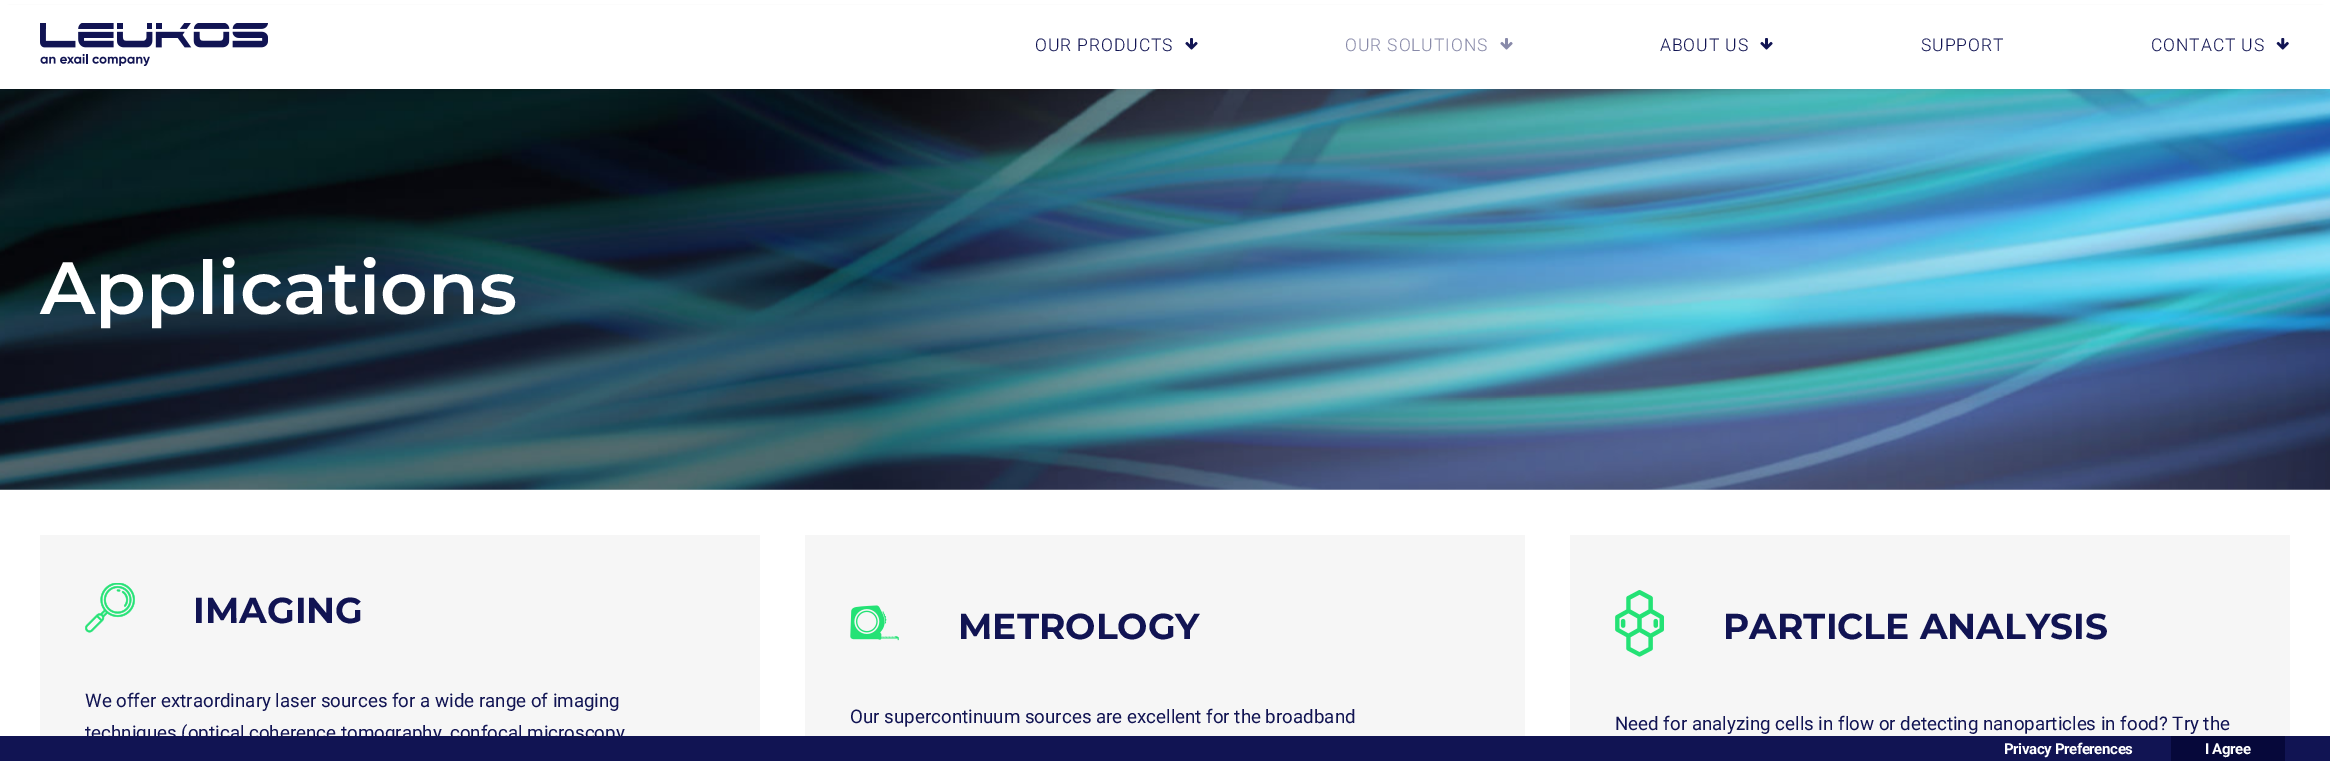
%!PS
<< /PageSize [2330 761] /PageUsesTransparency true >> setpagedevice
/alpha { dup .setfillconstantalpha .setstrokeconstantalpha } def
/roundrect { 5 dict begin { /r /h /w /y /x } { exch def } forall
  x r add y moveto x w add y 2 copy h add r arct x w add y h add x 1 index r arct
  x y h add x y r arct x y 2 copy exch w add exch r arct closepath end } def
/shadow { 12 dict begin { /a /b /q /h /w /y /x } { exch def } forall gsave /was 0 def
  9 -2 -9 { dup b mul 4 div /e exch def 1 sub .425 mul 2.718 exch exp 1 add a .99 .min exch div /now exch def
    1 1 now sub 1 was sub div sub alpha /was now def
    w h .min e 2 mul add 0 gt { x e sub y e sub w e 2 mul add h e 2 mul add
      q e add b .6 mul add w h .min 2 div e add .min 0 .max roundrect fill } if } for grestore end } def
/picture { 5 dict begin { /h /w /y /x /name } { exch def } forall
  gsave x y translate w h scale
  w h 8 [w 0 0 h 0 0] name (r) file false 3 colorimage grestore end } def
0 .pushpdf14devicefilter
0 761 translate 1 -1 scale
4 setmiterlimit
1 setgray
0 0 2330 761 rectfill
(img5.rgb) 0 89 2330 401 picture
0 setgray
8 18 2315 63 0 6 0.6 shadow
1 setgray
0 5 2330 84 rectfill
(img1.rgb) 40 23 228 43 picture
/Roboto-Light [17.5 0 0 -17.5 0 0] selectfont
0.067 0.078 0.325 setrgbcolor
1035 51 moveto 0.9 0 (OUR PRODUCTS) ashow
(img2.rgb) 1185 38 13 12 picture
0.533 0.541 0.663 setrgbcolor
1345 51 moveto 0.9 0 (OUR SOLUTIONS) ashow
(img3.rgb) 1500 38 13 12 picture
0.067 0.078 0.325 setrgbcolor
1660 51 moveto 0.9 0 (ABOUT US) ashow
(img2.rgb) 1760 38 13 12 picture
1921 51 moveto 0.9 0 (SUPPORT) ashow
2151 51 moveto 0.9 0 (CONTACT US) ashow
(img4.rgb) 2276 38 13 12 picture
/Montserrat-SemiBold [74 0 0 -74 0 0] selectfont
1 setgray
40 314 moveto (Applications) show
0.965 setgray
40 535 720 201 rectfill
(img6.rgb) 85 583 50 50 picture
/Montserrat-Bold [36 0 0 -36 0 0] selectfont
0.067 0.078 0.325 setrgbcolor
193 623 moveto (IMAGING) show
/Roboto-Regular [18.75 0 0 -18.75 0 0] selectfont
85 707 moveto (We offer extraordinary laser sources for a wide range of imaging) show
85 739 moveto (techniques \(optical coherence tomography, confocal microscopy) show
0.965 setgray
805 535 720 201 rectfill
(img7.rgb) 850 605 49 36 picture
/Montserrat-Bold [36 0 0 -36 0 0] selectfont
0.067 0.078 0.325 setrgbcolor
958 639 moveto (METROLOGY) show
/Roboto-Regular [18.75 0 0 -18.75 0 0] selectfont
850 723 moveto (Our supercontinuum sources are excellent for the broadband) show
0.965 setgray
1570 535 720 201 rectfill
(img8.rgb) 1615 590 49 67 picture
/Montserrat-Bold [36 0 0 -36 0 0] selectfont
0.067 0.078 0.325 setrgbcolor
1723 639 moveto (PARTICLE ANALYSIS) show
/Roboto-Regular [18.75 0 0 -18.75 0 0] selectfont
1615 730 moveto (Need for analyzing cells in flow or detecting nanoparticles in food? Try the) show
0 736 2330 25 rectfill
/Roboto-Bold [15 0 0 -15 0 0] selectfont
1 setgray
2004 754 moveto -0.4 0 (Privacy Preferences) ashow
0.024 0.031 0.227 setrgbcolor
2171 736 114 25 rectfill
1 setgray
2205 754 moveto -0.4 0 (I Agree) ashow
.poppdf14devicefilter showpage
